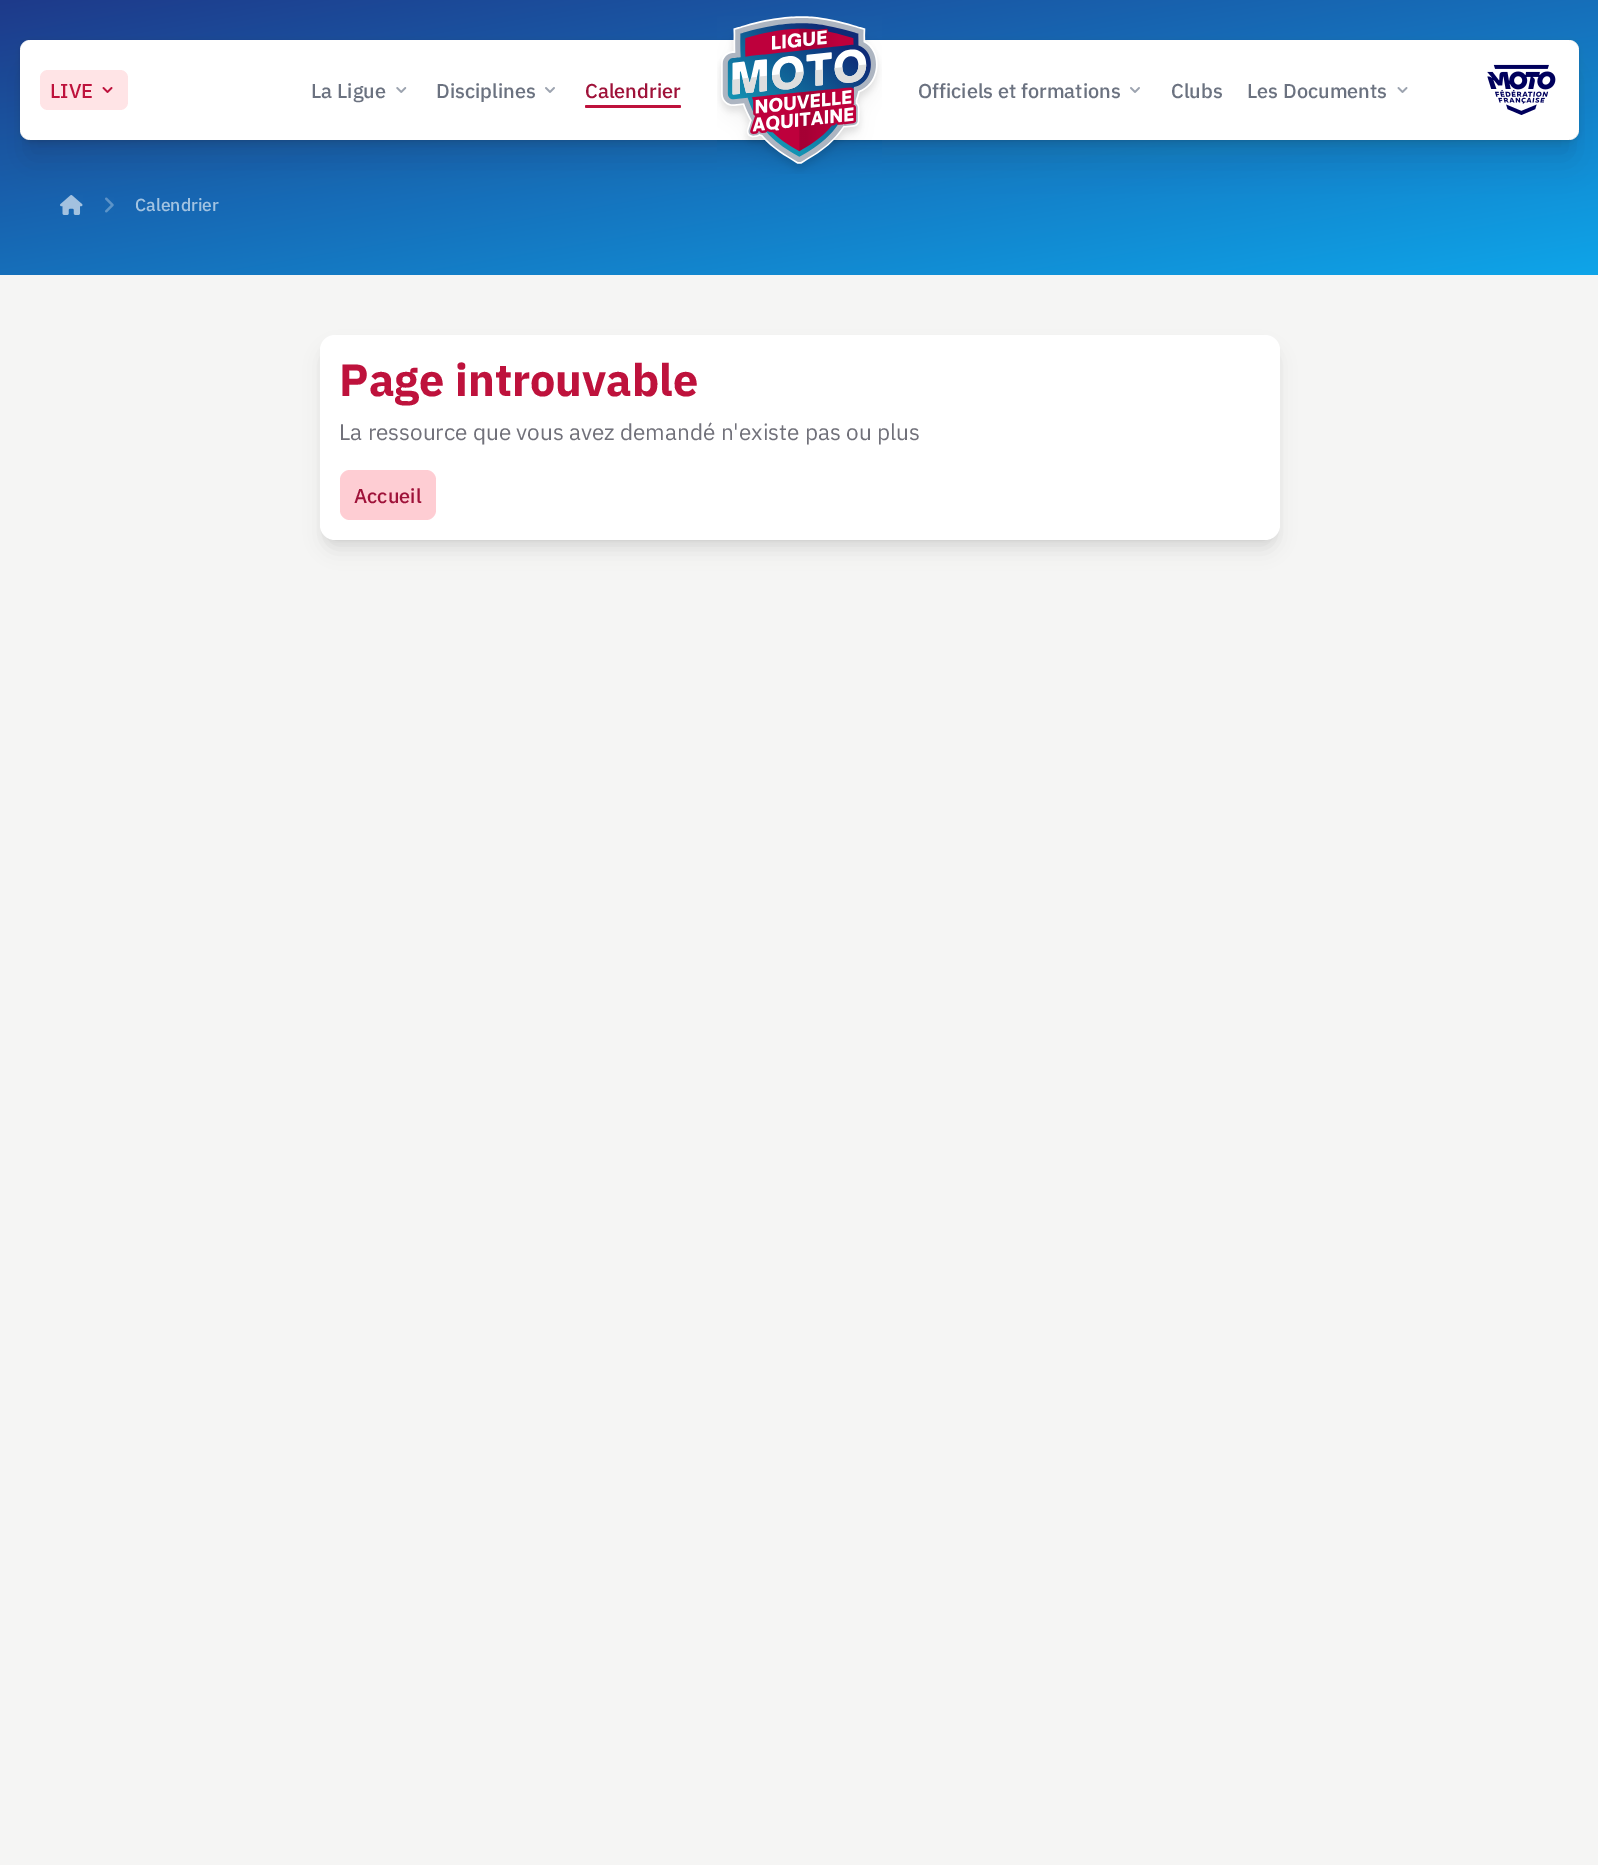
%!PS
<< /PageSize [1598 1865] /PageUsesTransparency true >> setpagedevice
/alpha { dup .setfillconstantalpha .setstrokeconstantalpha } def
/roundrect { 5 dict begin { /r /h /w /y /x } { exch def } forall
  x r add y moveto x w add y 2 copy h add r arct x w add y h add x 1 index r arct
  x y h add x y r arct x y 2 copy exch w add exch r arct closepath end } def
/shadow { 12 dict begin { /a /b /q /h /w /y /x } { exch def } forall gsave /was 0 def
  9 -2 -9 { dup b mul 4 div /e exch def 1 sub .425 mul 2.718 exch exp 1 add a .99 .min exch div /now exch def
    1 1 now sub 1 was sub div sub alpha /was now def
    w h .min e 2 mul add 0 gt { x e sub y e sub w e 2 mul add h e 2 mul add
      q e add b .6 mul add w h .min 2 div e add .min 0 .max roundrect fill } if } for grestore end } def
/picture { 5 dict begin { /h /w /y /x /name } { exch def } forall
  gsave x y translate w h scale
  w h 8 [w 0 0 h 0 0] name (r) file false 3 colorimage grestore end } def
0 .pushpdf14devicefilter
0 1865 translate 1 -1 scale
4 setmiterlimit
0.961 0.961 0.957 setrgbcolor
0 0 1598 1865 rectfill
gsave newpath 0 0 moveto 1598 0 lineto 1598 275 lineto 0 275 lineto closepath clip newpath
<< /ShadingType 2 /ColorSpace /DeviceRGB /Coords [753 -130 845 405] /Extend [true true] /Function << /FunctionType 2 /Domain [0 1] /C0 [0.118 0.227 0.541] /C1 [0.055 0.647 0.914] /N 1 >> >> shfill grestore
0 setgray
28 58 1543 85 2.5 6 0.1 shadow
(img7.rgb) 60 195 23 20 picture
(img8.rgb) 105 197 9 16 picture
26 71 1547 88 4 15.5 0.1 shadow
1 setgray
20 40 1559 100 10 roundrect fill
1 0.894 0.902 setrgbcolor
40 70 88 40 8 roundrect fill
(img1.rgb) 102 87 11 6 picture
(img2.rgb) 396 87 11 6 picture
(img3.rgb) 545 87 10 6 picture
0.745 0.071 0.235 setrgbcolor
585 105 96 3 1.5 roundrect fill
(img3.rgb) 1130 87 10 6 picture
(img5.rgb) 1397 87 11 6 picture
(img6.rgb) 1487 64 69 51 picture
gsave
newpath 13 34 moveto 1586 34 lineto 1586 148 lineto 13 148 lineto closepath 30 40 moveto 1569 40 lineto 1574.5 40 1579 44.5 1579 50 curveto 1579 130 lineto 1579 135.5 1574.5 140 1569 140 curveto 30 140 lineto 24.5 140 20 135.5 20 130 curveto 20 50 lineto 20 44.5 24.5 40 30 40 curveto closepath eoclip newpath
0 setgray
20 41 1559 100 10 2 0.1 shadow
grestore
/IBMPlexSans-Medium [20 0 0 -20 0 0] selectfont
50 98 moveto (LIVE) show
0.42 0.447 0.502 setrgbcolor
311 98 moveto (La Ligue) show
436 98 moveto (Disciplines) show
0.624 0.071 0.224 setrgbcolor
585 98 moveto (Calendrier) show
(img4.rgb) 717 16 165 158 picture
0.42 0.447 0.502 setrgbcolor
918 98 moveto (Officiels et formations) show
1171 98 moveto (Clubs) show
1247 98 moveto (Les Documents) show
/IBMPlexSans-Medium [17.5 0 0 -17.5 0 0] selectfont
0.635 0.765 0.882 setrgbcolor
135 211 moveto (Calendrier) show
0 setgray
325 345 950 195 10 4 0.1 shadow
324 351 952 198 11 9.5 0.1 shadow
1 setgray
320 335 960 205 15 roundrect fill
/IBMPlexSans-Bold [45 0 0 -45 0 0] selectfont
0.745 0.071 0.235 setrgbcolor
339 396 moveto (Page introuvable) show
/IBMPlexSans-Regular [22.5 0 0 -22.5 0 0] selectfont
0.443 0.443 0.478 setrgbcolor
339 440 moveto (La ressource que vous avez demandé n'existe pas ou plus) show
0.996 0.804 0.827 setrgbcolor
340 470 96 50 10 roundrect fill
/IBMPlexSans-Medium [20 0 0 -20 0 0] selectfont
0.624 0.071 0.224 setrgbcolor
354 503 moveto (Accueil) show
.poppdf14devicefilter showpage
